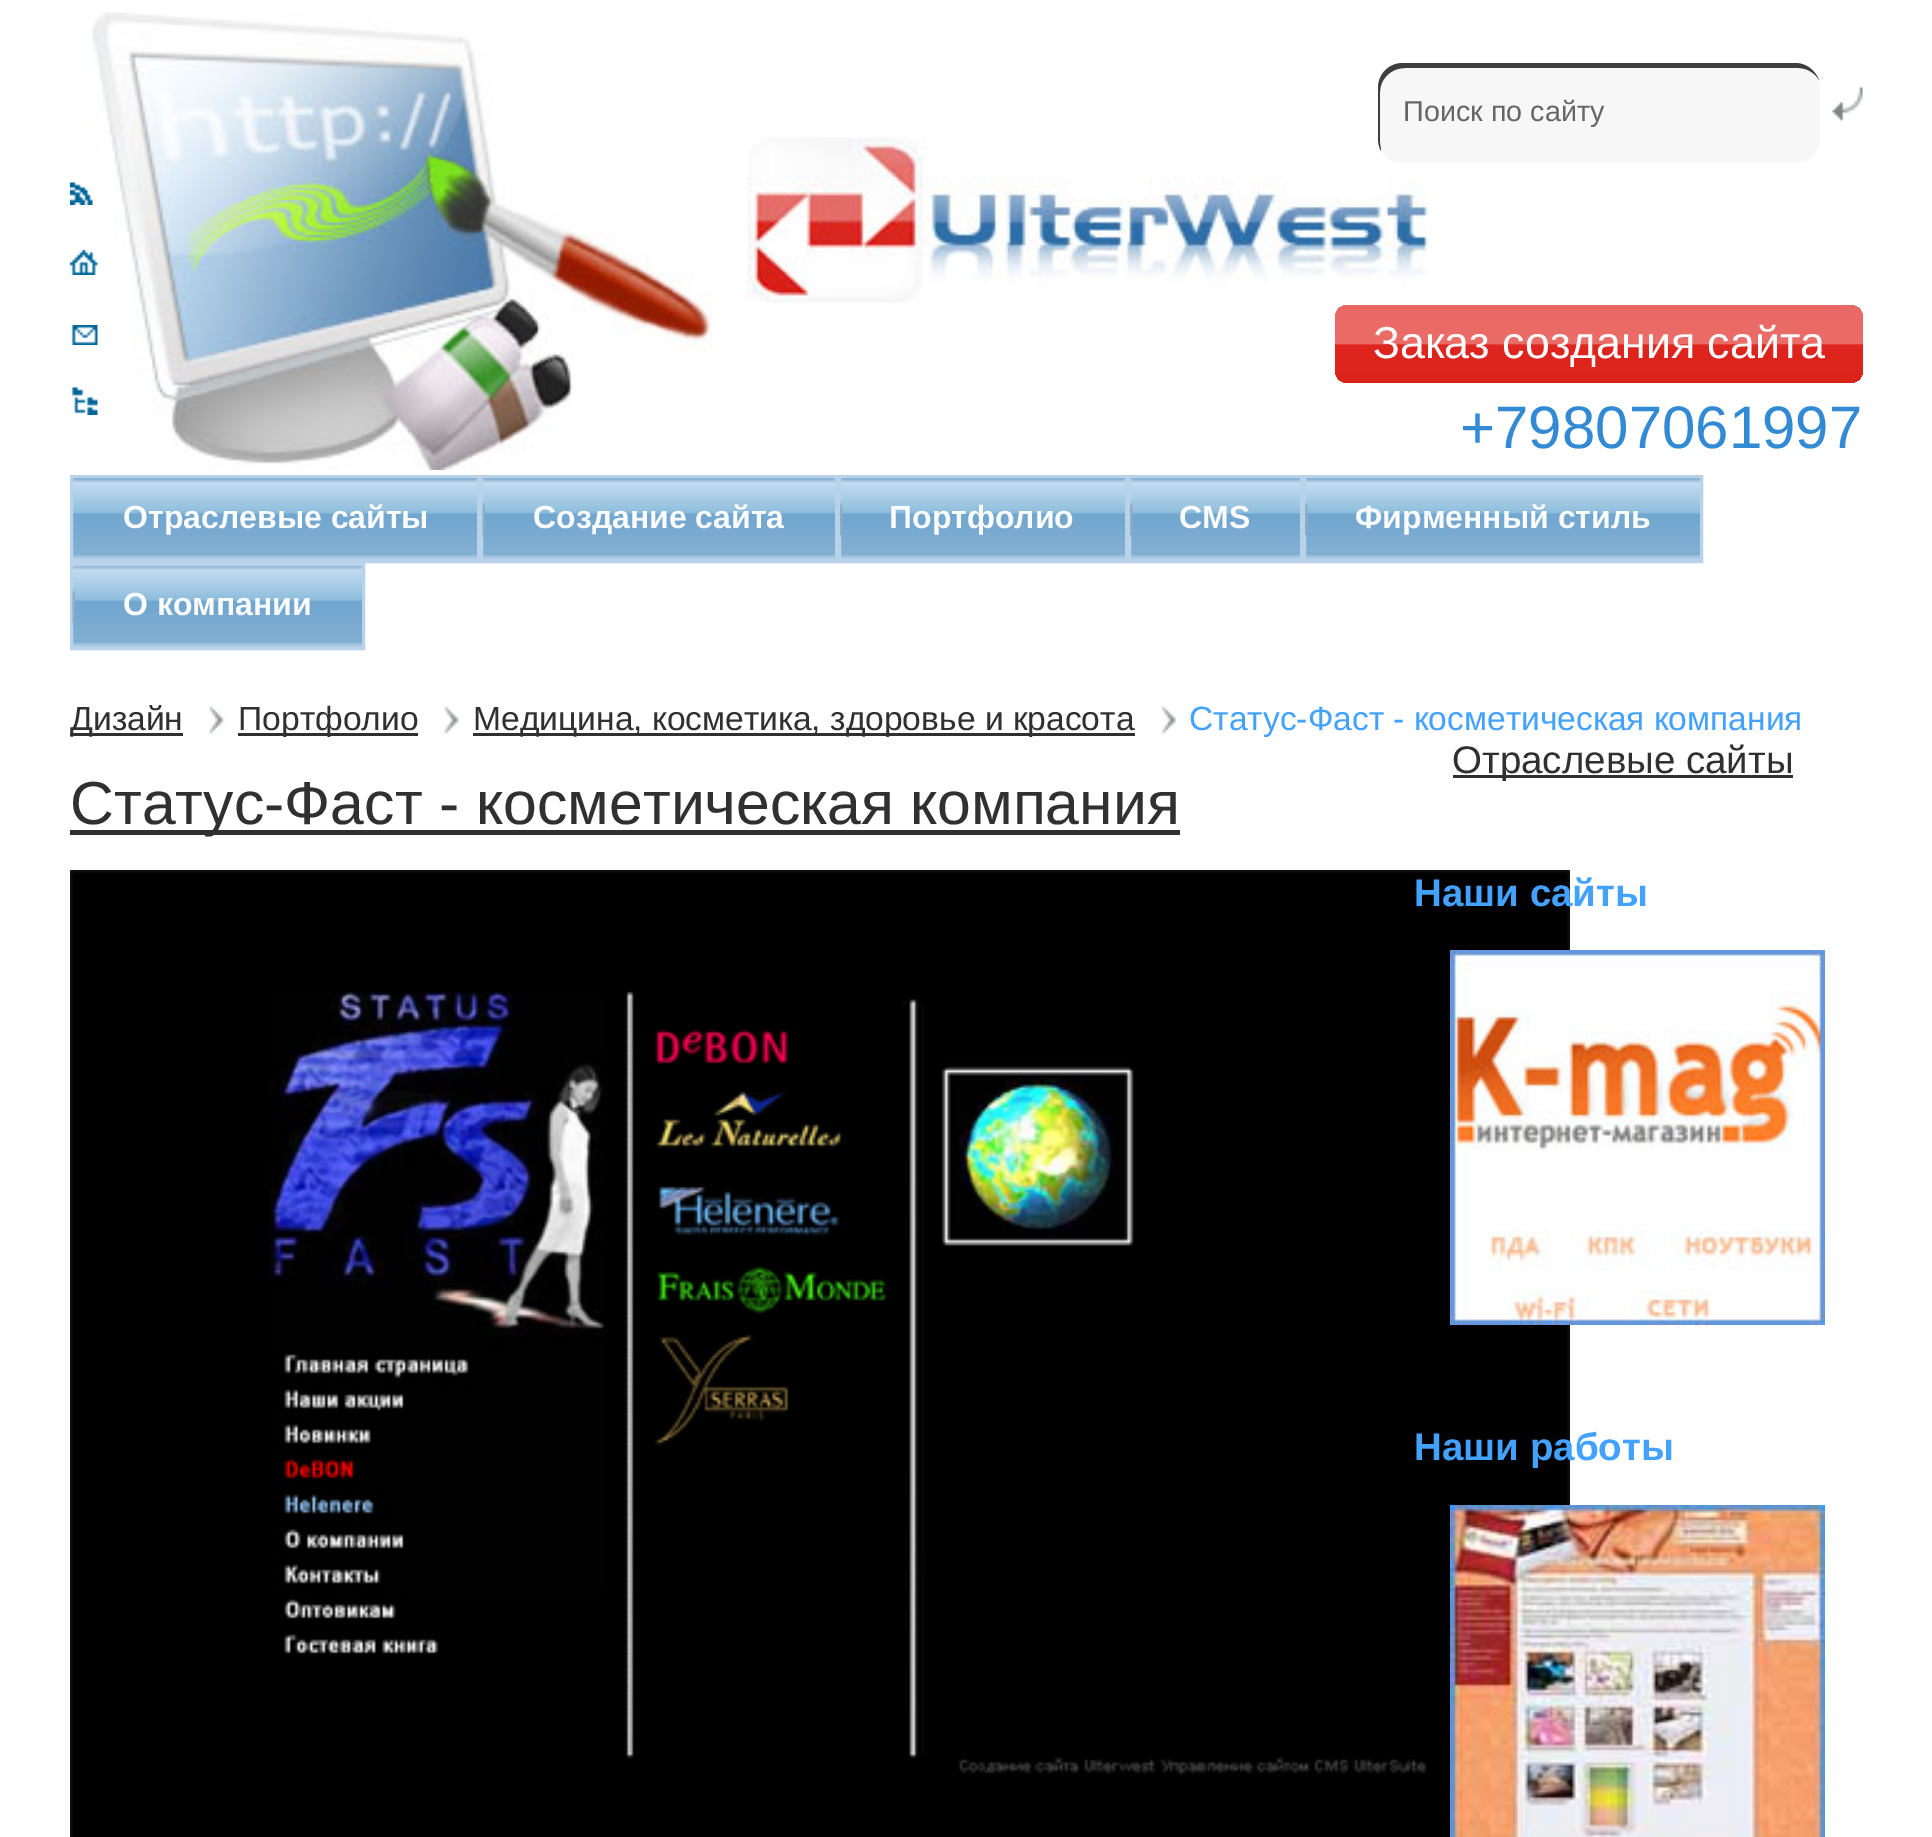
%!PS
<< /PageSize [1932 1837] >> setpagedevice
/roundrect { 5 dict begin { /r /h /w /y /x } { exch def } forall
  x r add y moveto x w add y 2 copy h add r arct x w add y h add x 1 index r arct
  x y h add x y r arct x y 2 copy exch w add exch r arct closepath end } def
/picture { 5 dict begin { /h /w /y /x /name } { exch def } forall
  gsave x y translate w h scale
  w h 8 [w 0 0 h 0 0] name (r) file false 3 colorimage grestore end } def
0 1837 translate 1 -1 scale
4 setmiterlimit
1 setgray
0 0 1932 1837 rectfill
(img1.rgb) 92 12 621 458 picture
(img7.rgb) 747 137 681 166 picture
0.969 setgray
1378 63 442 100 25 roundrect fill
0.243 setgray
newpath 1405 68 moveto 1798 68 lineto 1807 68 1815 73 1819 80 curveto 1815 70 1806 63 1795 63 curveto 1403 63 lineto 1389 63 1378 74 1378 88 curveto 1378 138 lineto 1378 143 1379 147 1381 151 curveto 1381 148 1380 145 1380 142 curveto 1380 92 lineto 1380 79 1391 68 1405 68 curveto closepath fill
/LiberationSans-Regular [28.75 0 0 -28.75 0 0] selectfont
0.4 setgray
1403 121 moveto (Поиск по сайту) show
(img2.rgb) 1831 86 32 35 picture
(img3.rgb) 70 182 23 23 picture
(img4.rgb) 70 250 28 25 picture
(img5.rgb) 71 325 27 20 picture
(img6.rgb) 71 387 27 28 picture
gsave 1335 305 528 78 13 roundrect clip newpath
<< /ShadingType 2 /ColorSpace /DeviceRGB /Coords [1599 305 1599 383] /Extend [true true] /Function << /FunctionType 3 /Domain [0 1] /Functions [<< /FunctionType 2 /Domain [0 1] /C0 [0.91 0.408 0.404] /C1 [0.925 0.427 0.4] /N 1 >> << /FunctionType 2 /Domain [0 1] /C0 [0.925 0.427 0.4] /C1 [0.871 0.145 0.125] /N 1 >> << /FunctionType 2 /Domain [0 1] /C0 [0.871 0.145 0.125] /C1 [0.855 0.141 0.098] /N 1 >>] /Bounds [0.5 0.51] /Encode [0 1 0 1 0 1] >> >> shfill grestore
/LiberationSans-Regular [44.75 0 0 -44.75 0 0] selectfont
0.98 0.984 0.988 setrgbcolor
1373 358 moveto (Заказ создания сайта) show
/LiberationSans-Regular [60 0 0 -60 0 0] selectfont
0.196 0.541 0.831 setrgbcolor
1460 448 moveto (+79807061997) show
gsave newpath 73 478 moveto 477 478 lineto 477 560 lineto 73 560 lineto closepath clip newpath
<< /ShadingType 2 /ColorSpace /DeviceRGB /Coords [275 478 275 560] /Extend [true true] /Function << /FunctionType 3 /Domain [0 1] /Functions [<< /FunctionType 2 /Domain [0 1] /C0 [0.459 0.643 0.788] /C1 [0.765 0.863 0.949] /N 1 >> << /FunctionType 2 /Domain [0 1] /C0 [0.765 0.863 0.949] /C1 [0.557 0.745 0.863] /N 1 >> << /FunctionType 2 /Domain [0 1] /C0 [0.557 0.745 0.863] /C1 [0.443 0.651 0.812] /N 1 >> << /FunctionType 2 /Domain [0 1] /C0 [0.443 0.651 0.812] /C1 [0.518 0.69 0.831] /N 1 >> << /FunctionType 2 /Domain [0 1] /C0 [0.518 0.69 0.831] /C1 [0.62 0.757 0.871] /N 1 >> << /FunctionType 2 /Domain [0 1] /C0 [0.62 0.757 0.871] /C1 [0.718 0.824 0.914] /N 1 >>] /Bounds [0.06 0.42 0.44 0.94 0.95] /Encode [0 1 0 1 0 1 0 1 0 1 0 1] >> >> shfill grestore
0.718 0.824 0.914 setrgbcolor
3 setlinewidth
71.5 476.5 407 85 rectstroke
/LiberationSans-Bold [32 0 0 -32 0 0] selectfont
0.98 0.984 0.988 setrgbcolor
123 528 moveto (Отраслевые сайты) show
gsave newpath 483 478 moveto 835 478 lineto 835 560 lineto 483 560 lineto closepath clip newpath
<< /ShadingType 2 /ColorSpace /DeviceRGB /Coords [659 478 659 560] /Extend [true true] /Function << /FunctionType 3 /Domain [0 1] /Functions [<< /FunctionType 2 /Domain [0 1] /C0 [0.459 0.643 0.788] /C1 [0.765 0.863 0.949] /N 1 >> << /FunctionType 2 /Domain [0 1] /C0 [0.765 0.863 0.949] /C1 [0.557 0.745 0.863] /N 1 >> << /FunctionType 2 /Domain [0 1] /C0 [0.557 0.745 0.863] /C1 [0.443 0.651 0.812] /N 1 >> << /FunctionType 2 /Domain [0 1] /C0 [0.443 0.651 0.812] /C1 [0.518 0.69 0.831] /N 1 >> << /FunctionType 2 /Domain [0 1] /C0 [0.518 0.69 0.831] /C1 [0.62 0.757 0.871] /N 1 >> << /FunctionType 2 /Domain [0 1] /C0 [0.62 0.757 0.871] /C1 [0.718 0.824 0.914] /N 1 >>] /Bounds [0.06 0.42 0.44 0.94 0.95] /Encode [0 1 0 1 0 1 0 1 0 1 0 1] >> >> shfill grestore
0.718 0.824 0.914 setrgbcolor
481.5 476.5 355 85 rectstroke
(img8.rgb) 482 502 3 33 picture
0.98 0.984 0.988 setrgbcolor
533 528 moveto (Создание сайта) show
gsave newpath 841 478 moveto 1125 478 lineto 1125 560 lineto 841 560 lineto closepath clip newpath
<< /ShadingType 2 /ColorSpace /DeviceRGB /Coords [983 478 983 560] /Extend [true true] /Function << /FunctionType 3 /Domain [0 1] /Functions [<< /FunctionType 2 /Domain [0 1] /C0 [0.459 0.643 0.788] /C1 [0.765 0.863 0.949] /N 1 >> << /FunctionType 2 /Domain [0 1] /C0 [0.765 0.863 0.949] /C1 [0.557 0.745 0.863] /N 1 >> << /FunctionType 2 /Domain [0 1] /C0 [0.557 0.745 0.863] /C1 [0.443 0.651 0.812] /N 1 >> << /FunctionType 2 /Domain [0 1] /C0 [0.443 0.651 0.812] /C1 [0.518 0.69 0.831] /N 1 >> << /FunctionType 2 /Domain [0 1] /C0 [0.518 0.69 0.831] /C1 [0.62 0.757 0.871] /N 1 >> << /FunctionType 2 /Domain [0 1] /C0 [0.62 0.757 0.871] /C1 [0.718 0.824 0.914] /N 1 >>] /Bounds [0.06 0.42 0.44 0.94 0.95] /Encode [0 1 0 1 0 1 0 1 0 1 0 1] >> >> shfill grestore
0.718 0.824 0.914 setrgbcolor
839.5 476.5 287 85 rectstroke
(img9.rgb) 840 502 3 33 picture
0.98 0.984 0.988 setrgbcolor
889 528 moveto (Портфолио) show
gsave newpath 1131 478 moveto 1300 478 lineto 1300 560 lineto 1131 560 lineto closepath clip newpath
<< /ShadingType 2 /ColorSpace /DeviceRGB /Coords [1215 478 1215 560] /Extend [true true] /Function << /FunctionType 3 /Domain [0 1] /Functions [<< /FunctionType 2 /Domain [0 1] /C0 [0.459 0.643 0.788] /C1 [0.765 0.863 0.949] /N 1 >> << /FunctionType 2 /Domain [0 1] /C0 [0.765 0.863 0.949] /C1 [0.557 0.745 0.863] /N 1 >> << /FunctionType 2 /Domain [0 1] /C0 [0.557 0.745 0.863] /C1 [0.443 0.651 0.812] /N 1 >> << /FunctionType 2 /Domain [0 1] /C0 [0.443 0.651 0.812] /C1 [0.518 0.69 0.831] /N 1 >> << /FunctionType 2 /Domain [0 1] /C0 [0.518 0.69 0.831] /C1 [0.62 0.757 0.871] /N 1 >> << /FunctionType 2 /Domain [0 1] /C0 [0.62 0.757 0.871] /C1 [0.718 0.824 0.914] /N 1 >>] /Bounds [0.06 0.42 0.44 0.94 0.95] /Encode [0 1 0 1 0 1 0 1 0 1 0 1] >> >> shfill grestore
0.718 0.824 0.914 setrgbcolor
1129.5 476.5 172 85 rectstroke
(img9.rgb) 1130 502 3 33 picture
0.98 0.984 0.988 setrgbcolor
1179 528 moveto (CMS) show
gsave newpath 1306 478 moveto 1700 478 lineto 1700 560 lineto 1306 560 lineto closepath clip newpath
<< /ShadingType 2 /ColorSpace /DeviceRGB /Coords [1503 478 1503 560] /Extend [true true] /Function << /FunctionType 3 /Domain [0 1] /Functions [<< /FunctionType 2 /Domain [0 1] /C0 [0.459 0.643 0.788] /C1 [0.765 0.863 0.949] /N 1 >> << /FunctionType 2 /Domain [0 1] /C0 [0.765 0.863 0.949] /C1 [0.557 0.745 0.863] /N 1 >> << /FunctionType 2 /Domain [0 1] /C0 [0.557 0.745 0.863] /C1 [0.443 0.651 0.812] /N 1 >> << /FunctionType 2 /Domain [0 1] /C0 [0.443 0.651 0.812] /C1 [0.518 0.69 0.831] /N 1 >> << /FunctionType 2 /Domain [0 1] /C0 [0.518 0.69 0.831] /C1 [0.62 0.757 0.871] /N 1 >> << /FunctionType 2 /Domain [0 1] /C0 [0.62 0.757 0.871] /C1 [0.718 0.824 0.914] /N 1 >>] /Bounds [0.06 0.42 0.44 0.94 0.95] /Encode [0 1 0 1 0 1 0 1 0 1 0 1] >> >> shfill grestore
0.718 0.824 0.914 setrgbcolor
1304.5 476.5 397 85 rectstroke
(img9.rgb) 1305 502 3 33 picture
0.98 0.984 0.988 setrgbcolor
1355 528 moveto (Фирменный стиль) show
gsave newpath 73 566 moveto 362 566 lineto 362 647 lineto 73 647 lineto closepath clip newpath
<< /ShadingType 2 /ColorSpace /DeviceRGB /Coords [218 565 218 648] /Extend [true true] /Function << /FunctionType 3 /Domain [0 1] /Functions [<< /FunctionType 2 /Domain [0 1] /C0 [0.459 0.643 0.788] /C1 [0.765 0.863 0.949] /N 1 >> << /FunctionType 2 /Domain [0 1] /C0 [0.765 0.863 0.949] /C1 [0.557 0.745 0.863] /N 1 >> << /FunctionType 2 /Domain [0 1] /C0 [0.557 0.745 0.863] /C1 [0.443 0.651 0.812] /N 1 >> << /FunctionType 2 /Domain [0 1] /C0 [0.443 0.651 0.812] /C1 [0.518 0.69 0.831] /N 1 >> << /FunctionType 2 /Domain [0 1] /C0 [0.518 0.69 0.831] /C1 [0.62 0.757 0.871] /N 1 >> << /FunctionType 2 /Domain [0 1] /C0 [0.62 0.757 0.871] /C1 [0.718 0.824 0.914] /N 1 >>] /Bounds [0.06 0.42 0.44 0.94 0.95] /Encode [0 1 0 1 0 1 0 1 0 1 0 1] >> >> shfill grestore
0.718 0.824 0.914 setrgbcolor
71.5 564.5 292 84 rectstroke
(img10.rgb) 72 590 3 33 picture
0.98 0.984 0.988 setrgbcolor
123 615 moveto (О компании) show
0.188 setgray
70 733 113 3 rectfill
/LiberationSans-Regular [33.6 0 0 -33.6 0 0] selectfont
70 730 moveto (Дизайн) show
(img11.rgb) 207 705 18 30 picture
238 733 180 3 rectfill
238 730 moveto (Портфолио) show
(img11.rgb) 442 705 18 30 picture
473 733 662 3 rectfill
473 730 moveto (Медицина, косметика, здоровье и красота) show
(img12.rgb) 1160 705 18 30 picture
0.263 0.635 1 setrgbcolor
1189 730 moveto (Статус-Фаст - коcметическая компания) show
0.188 setgray
70 830 1110 5 rectfill
/LiberationSans-Regular [60.75 0 0 -60.75 0 0] selectfont
70 824 moveto (Статус-Фаст - коcметическая компания) show
(img13.rgb) 70 870 1500 967 picture
1453 775 340 3 rectfill
/LiberationSans-Regular [38.5 0 0 -38.5 0 0] selectfont
1452 773 moveto (Отраслевые сайты) show
/LiberationSans-Bold [38.5 0 0 -38.5 0 0] selectfont
0.263 0.635 1 setrgbcolor
1414 906 moveto (Наши сайты) show
(img14.rgb) 1450 950 375 375 picture
1414 1460 moveto (Наши работы) show
(img15.rgb) 1450 1505 375 332 picture
showpage
